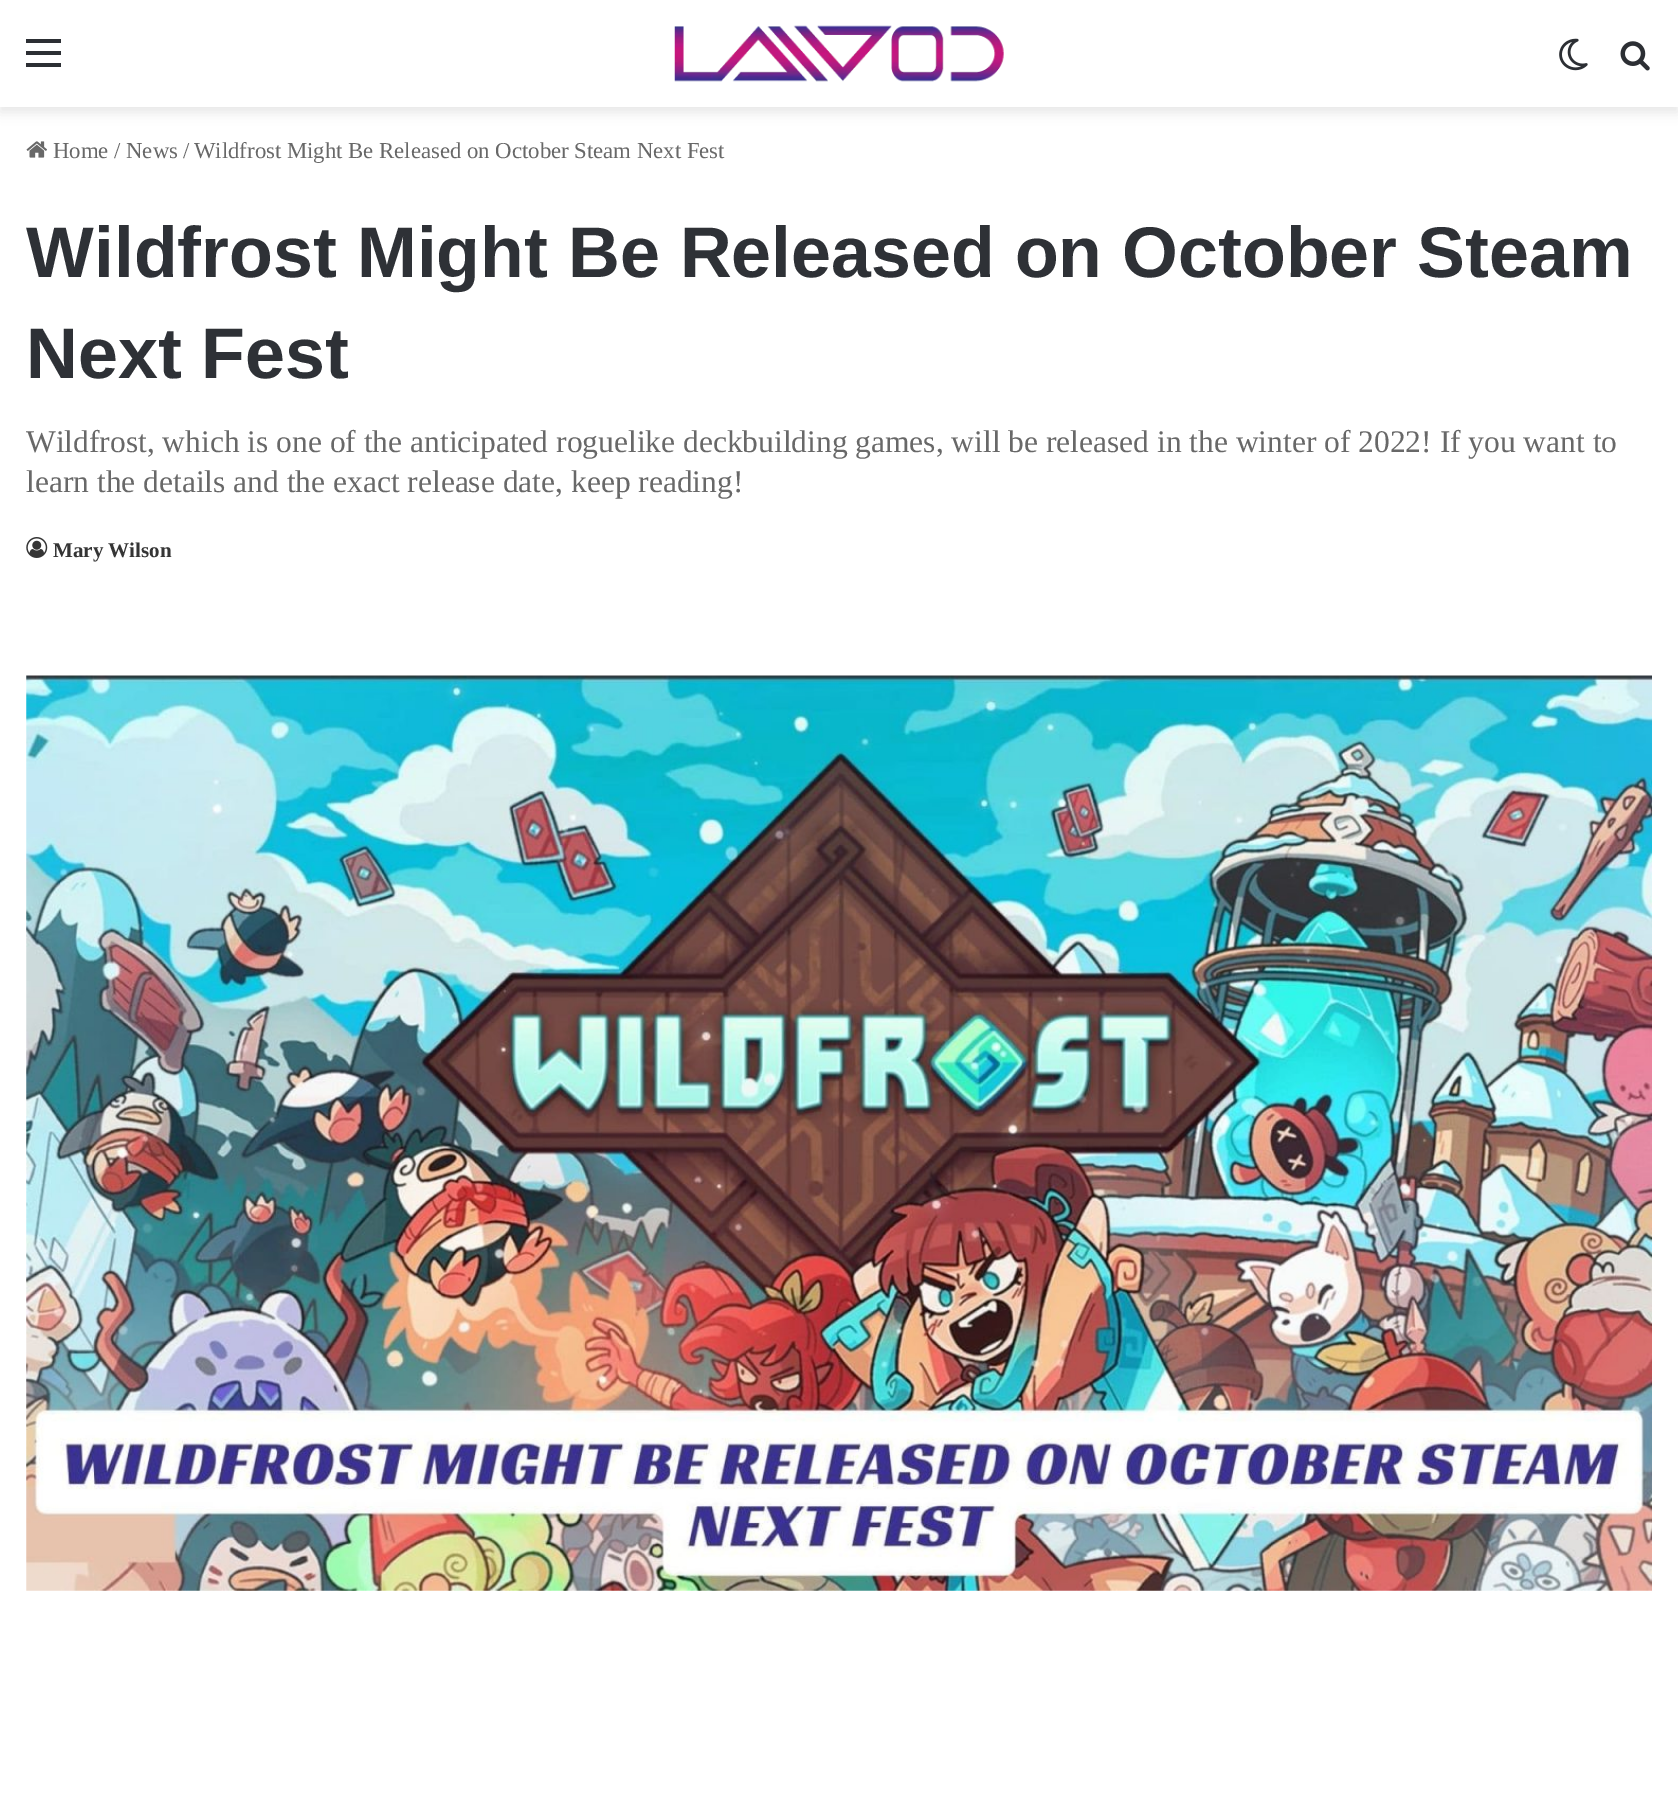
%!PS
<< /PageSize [1678 1809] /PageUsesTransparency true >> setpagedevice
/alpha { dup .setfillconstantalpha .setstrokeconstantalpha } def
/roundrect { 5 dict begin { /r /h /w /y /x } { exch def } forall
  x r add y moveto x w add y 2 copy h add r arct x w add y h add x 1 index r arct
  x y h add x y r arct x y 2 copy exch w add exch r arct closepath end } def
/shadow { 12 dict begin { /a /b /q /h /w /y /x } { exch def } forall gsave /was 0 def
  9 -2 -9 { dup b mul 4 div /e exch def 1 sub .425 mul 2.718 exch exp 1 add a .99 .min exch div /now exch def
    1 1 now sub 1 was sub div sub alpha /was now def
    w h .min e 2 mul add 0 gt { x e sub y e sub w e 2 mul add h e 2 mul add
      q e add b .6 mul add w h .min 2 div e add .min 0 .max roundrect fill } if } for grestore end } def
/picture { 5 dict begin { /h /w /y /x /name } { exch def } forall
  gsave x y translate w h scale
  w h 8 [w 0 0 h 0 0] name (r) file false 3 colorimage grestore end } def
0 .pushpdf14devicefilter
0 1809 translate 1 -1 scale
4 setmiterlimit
1 setgray
0 0 1678 1809 rectfill
0 setgray
0 5 1678 107 0 6 0.1 shadow
1 setgray
0 0 1678 107 rectfill
0.173 0.184 0.204 setrgbcolor
26 51 35 4 rectfill
26 39 35 4 rectfill
26 63 35 4 rectfill
(img1.rgb) 674 25 330 57 picture
(img2.rgb) 1559 38 29 33 picture
(img3.rgb) 1620 41 30 30 picture
(img4.rgb) 26 141 21 17 picture
/LiberationSerif-Regular [22.75 0 0 -22.75 0 0] selectfont
0.408 setgray
53 158 moveto (Home) show
114 158 moveto (/) show
126 158 moveto (News) show
183 158 moveto (/) show
194 158 moveto (Wildfrost Might Be Released on October Steam Next Fest) show
/LiberationSans-Bold [71.75 0 0 -71.75 0 0] selectfont
0.18 0.192 0.212 setrgbcolor
26 277 moveto (Wildfrost Might Be Released on October Steam) show
26 378 moveto (Next Fest) show
/LiberationSerif-Regular [31.5 0 0 -31.5 0 0] selectfont
0.408 setgray
26 452 moveto (Wildfrost, which is one of the anticipated roguelike deckbuilding games, will be released in the winter of 2022! If you want to) show
26 492 moveto (learn the details and the exact release date, keep reading!) show
(img5.rgb) 26 537 22 21 picture
/LiberationSerif-Bold [21 0 0 -21 0 0] selectfont
0.208 setgray
53 557 moveto (Mary Wilson) show
(img6.rgb) 26 675 1626 916 picture
.poppdf14devicefilter showpage
